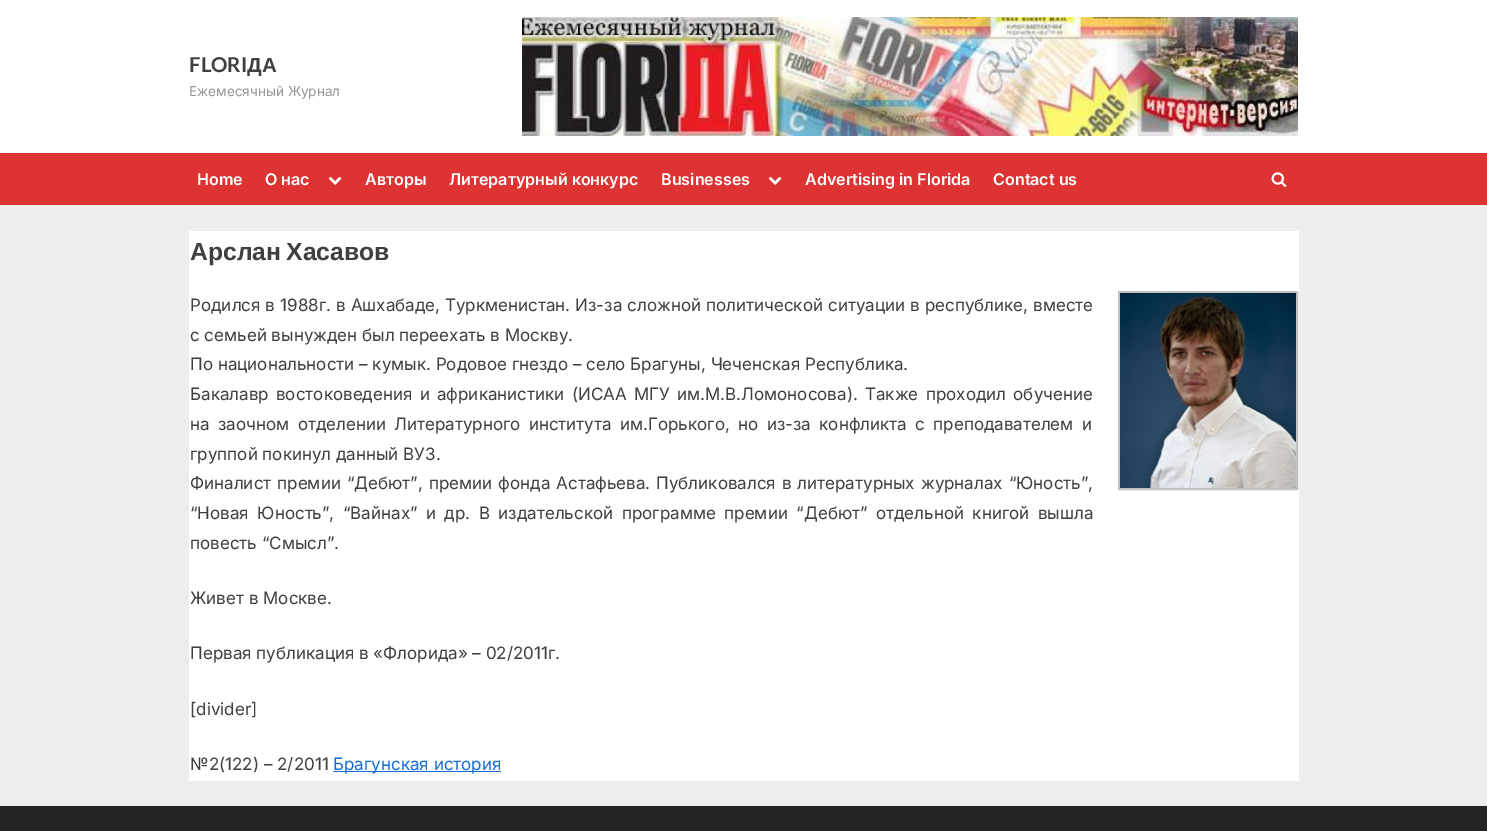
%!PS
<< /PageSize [1487 831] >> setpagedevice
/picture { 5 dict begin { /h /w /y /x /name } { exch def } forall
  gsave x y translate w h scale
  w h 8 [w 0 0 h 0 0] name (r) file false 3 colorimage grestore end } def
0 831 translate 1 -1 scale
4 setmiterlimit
0.929 setgray
0 0 1487 831 rectfill
1 setgray
0 0 1487 153 rectfill
/Lato-Bold [20.5 0 0 -20.5 0 0] selectfont
0.251 setgray
189 72 moveto (FLORI) show
/LiberationSans-Bold [20.5 0 0 -20.5 0 0] selectfont
247 72 moveto (ДА) show
/Inter-Regular [13.6 0 0 -13.6 0 0] selectfont
0.592 setgray
189 96 moveto (Ежемесячный Журнал) show
(img1.rgb) 522 17 776 119 picture
0.867 0.2 0.2 setrgbcolor
0 153 1487 52 rectfill
/Inter-SemiBold [16.1 0 0 -16.1 0 0] selectfont
1 setgray
197 185 moveto (Home) show
265 185 moveto (О нас) show
(img2.rgb) 328 177 14 8 picture
365 185 moveto (Авторы) show
449 185 moveto (Литературный конкурс) show
661 185 moveto (Businesses) show
(img2.rgb) 768 177 14 8 picture
805 185 moveto (Advertising in Florida) show
993 185 moveto (Contact us) show
(img3.rgb) 1271 172 16 15 picture
189 231 1110 550 rectfill
/LiberationSans-Bold [24.75 0 0 -24.75 0 0] selectfont
0.251 setgray
190 260 moveto -2 0 32 (Арслан Хасавов) widthshow
/Inter-Regular [17 0 0 -17 0 0] selectfont
190 311 moveto 0.25 0 32 (Родился в 1988г. в Ашхабаде, Туркменистан. Из-за сложной политической ситуации в республике, вместе) widthshow
0.753 setgray
2 setlinewidth
1119 292 178 197 rectstroke
(img4.rgb) 1120 293 176 195 picture
0.251 setgray
190 341 moveto (с семьей вынужден был переехать в Москву.) show
190 370 moveto (По национальности – кумык. Родовое гнездо – село Брагуны, Чеченская Республика.) show
190 400 moveto 2.5 0 32 (Бакалавр востоковедения и африканистики \(ИСАА МГУ им.М.В.Ломоносова\). Также проходил обучение) widthshow
190 430 moveto 3.6 0 32 (на заочном отделении Литературного института им.Горького, но из-за конфликта с преподавателем и) widthshow
190 460 moveto (группой покинул данный ВУЗ.) show
190 489 moveto 1.25 0 32 (Финалист премии “Дебют”, премии фонда Астафьева. Публиковался в литературных журналах “Юность”,) widthshow
190 519 moveto 3.75 0 32 (“Новая Юность”, “Вайнах” и др. В издательской программе премии “Дебют” отдельной книгой вышла) widthshow
190 549 moveto (повесть “Смысл”.) show
190 604 moveto (Живет в Москве.) show
190 659 moveto (Первая публикация в «Флорида» – 02/2011г.) show
190 715 moveto ([divider]) show
190 770 moveto (№2\(122\) – 2/2011) show
0.086 0.427 0.839 setrgbcolor
333 771 168 1 rectfill
333 770 moveto (Брагунская история) show
0.137 setgray
0 806 1487 25 rectfill
showpage
